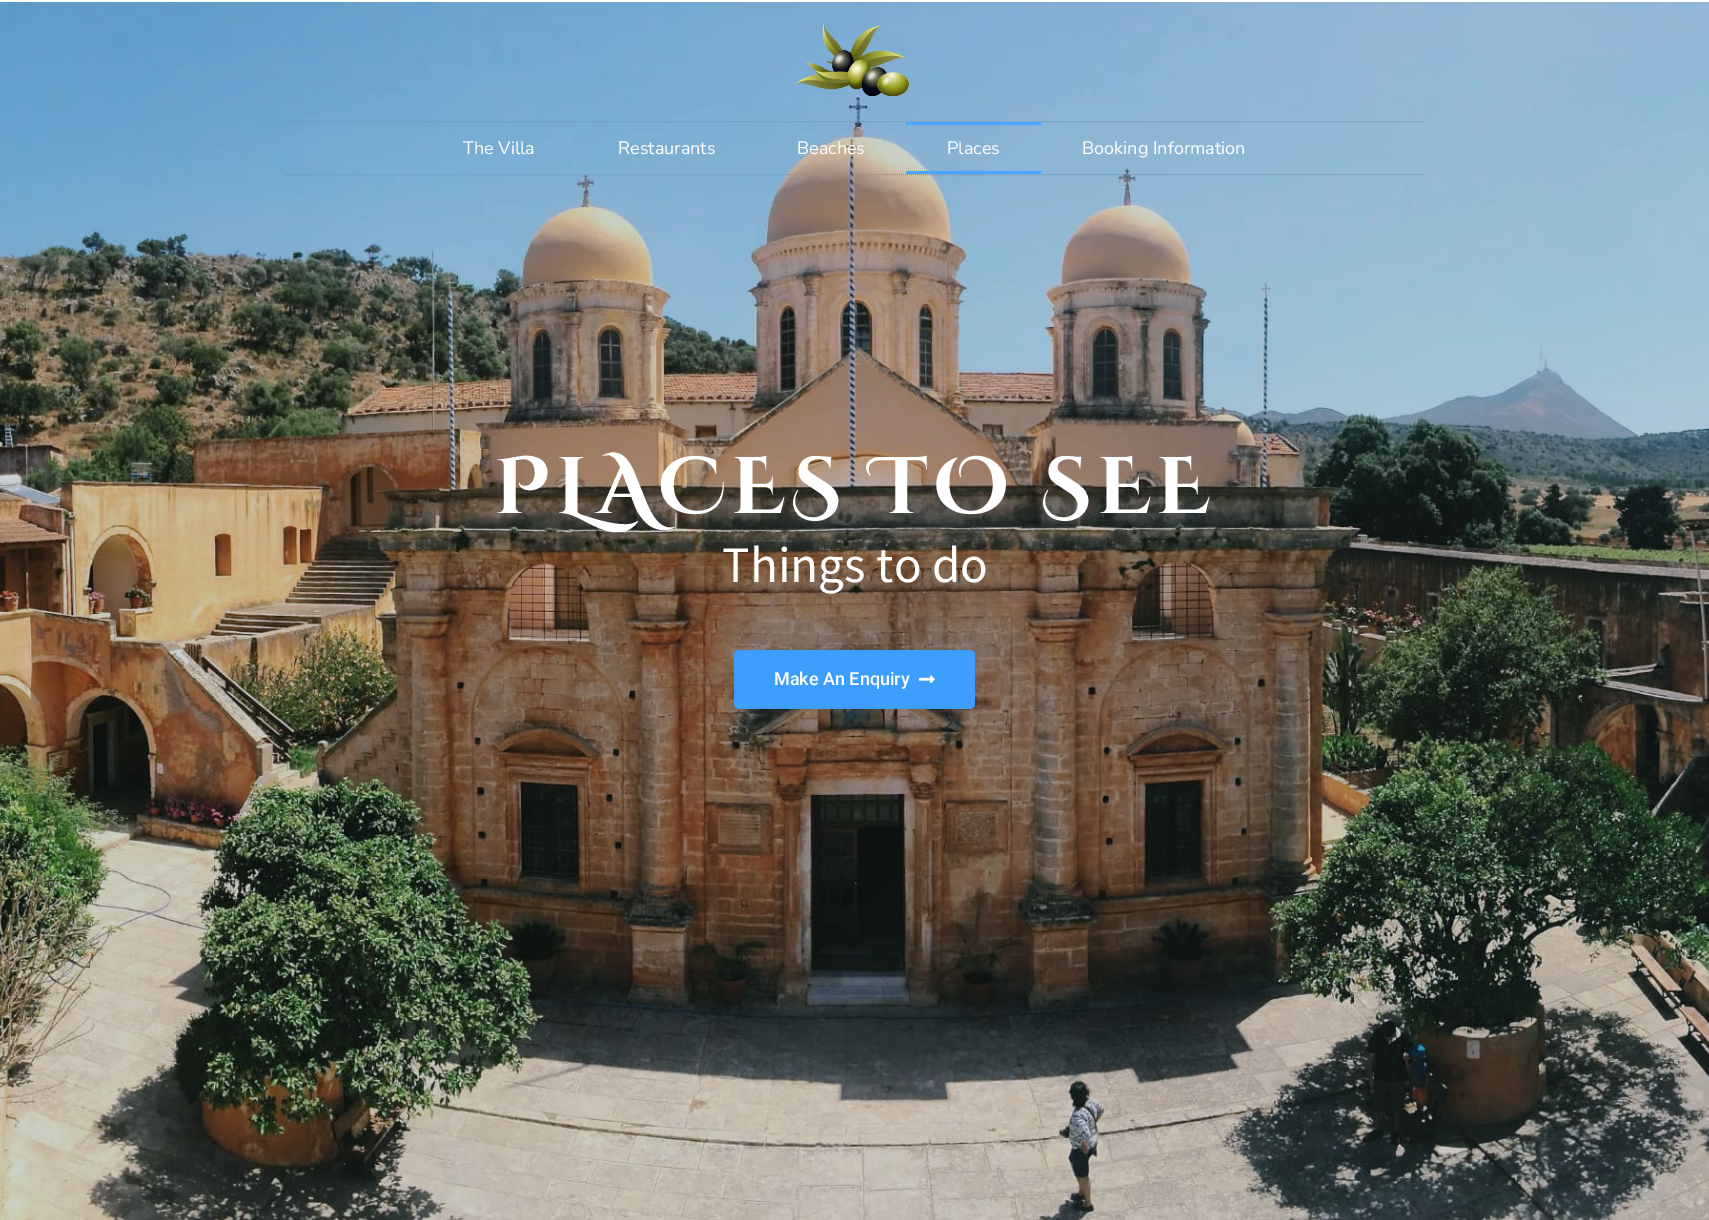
%!PS
<< /PageSize [1709 1220] >> setpagedevice
/roundrect { 5 dict begin { /r /h /w /y /x } { exch def } forall
  x r add y moveto x w add y 2 copy h add r arct x w add y h add x 1 index r arct
  x y h add x y r arct x y 2 copy exch w add exch r arct closepath end } def
/picture { 5 dict begin { /h /w /y /x /name } { exch def } forall
  gsave x y translate w h scale
  w h 8 [w 0 0 h 0 0] name (r) file false 3 colorimage grestore end } def
0 1220 translate 1 -1 scale
4 setmiterlimit
1 setgray
0 0 1709 1220 rectfill
(img2.rgb) 0 2 1709 1218 picture
(img1.rgb) 795 24 114 72 picture
0.557 setgray
[1 1] 0 setdash
newpath 285 121.5 moveto 1425 121.5 lineto stroke
newpath 285 174.5 moveto 1425 174.5 lineto stroke
/NunitoSans-Regular [18 0 0 -18 0 0] selectfont
1 setgray
463 154 moveto (The Villa) show
618 154 moveto (Restaurants) show
797 154 moveto (Beaches) show
0.294 0.651 1 setrgbcolor
906 122 135 3 rectfill
1 setgray
947 154 moveto (Places) show
0.294 0.651 1 setrgbcolor
906 171 135 3 rectfill
1 setgray
1082 154 moveto (Booking Information) show
/CinzelDecorative-Bold [80 0 0 -80 0 0] selectfont
494 513 moveto 6 0 (PLACES TO SEE) ashow
/SourceSansPro-Regular [51.25 0 0 -51.25 0 0] selectfont
722 582 moveto 0.1 0 (Things to do) ashow
0.239 0.62 0.992 setrgbcolor
734 650 241 59 5 roundrect fill
/Roboto-Medium [18 0 0 -18 0 0] selectfont
1 setgray
774 685 moveto (Make An Enquiry) show
(img3.rgb) 919 675 16 9 picture
showpage
